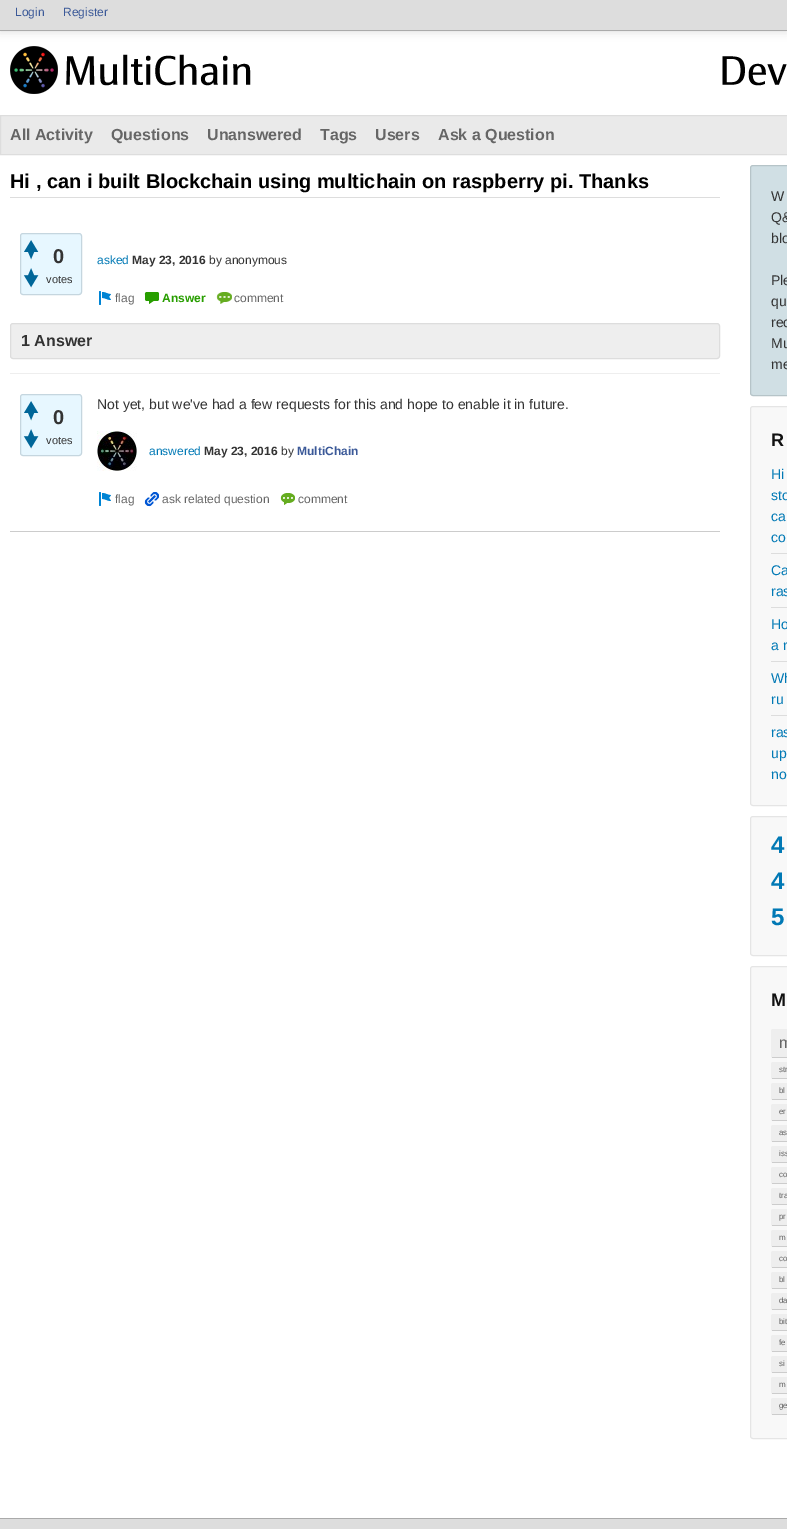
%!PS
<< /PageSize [787 1529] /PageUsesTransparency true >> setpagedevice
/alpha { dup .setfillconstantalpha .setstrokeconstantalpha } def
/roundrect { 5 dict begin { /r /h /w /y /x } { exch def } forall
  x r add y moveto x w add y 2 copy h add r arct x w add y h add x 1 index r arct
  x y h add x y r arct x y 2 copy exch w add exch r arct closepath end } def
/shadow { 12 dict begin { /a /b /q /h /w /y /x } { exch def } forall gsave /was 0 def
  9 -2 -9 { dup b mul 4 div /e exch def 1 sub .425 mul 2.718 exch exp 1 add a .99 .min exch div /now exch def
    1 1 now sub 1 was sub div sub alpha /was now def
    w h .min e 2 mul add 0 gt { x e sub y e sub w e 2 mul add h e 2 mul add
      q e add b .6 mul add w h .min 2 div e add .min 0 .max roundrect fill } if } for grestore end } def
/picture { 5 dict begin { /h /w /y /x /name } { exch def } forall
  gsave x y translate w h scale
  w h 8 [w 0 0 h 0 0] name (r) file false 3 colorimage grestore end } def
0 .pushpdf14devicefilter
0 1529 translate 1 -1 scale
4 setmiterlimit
1 setgray
0 0 787 1529 rectfill
0 setgray
0 0 787 31 0 5 0.15 shadow
0.867 setgray
0 0 787 30 rectfill
0.667 setgray
0 30 787 1 rectfill
/LiberationSans-Regular [12 0 0 -12 0 0] selectfont
0.231 0.349 0.596 setrgbcolor
15 16 moveto (Login) show
63 16 moveto (Register) show
(img1.rgb) 10 46 241 48 picture
(img2.rgb) 722 56 65 30 picture
0.918 setgray
newpath 0.5 115.5 moveto 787.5 115.5 lineto 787.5 154.5 lineto 0.5 154.5 lineto closepath gsave fill grestore
0.867 setgray
stroke
/LiberationSans-Bold [16 0 0 -16 0 0] selectfont
0.4 setgray
10 140 moveto (All Activity) show
111 140 moveto (Questions) show
207 140 moveto (Unanswered) show
320 140 moveto (Tags) show
375 140 moveto (Users) show
438 140 moveto (Ask a Question) show
0.867 setgray
10 197 710 1 rectfill
/LiberationSans-Bold [20 0 0 -20 0 0] selectfont
0 setgray
10 188 moveto (Hi , can i built Blockchain using multichain on raspberry pi. Thanks) show
0.906 0.969 1 setrgbcolor
20.5 233.5 61 61 2.5 roundrect gsave fill grestore
0.773 0.839 0.875 setrgbcolor
stroke
(img3.rgb) 24 240 15 20 picture
(img4.rgb) 23 268 16 20 picture
0.2 setgray
53 263 moveto (0) show
/LiberationSans-Regular [11 0 0 -11 0 0] selectfont
46 283 moveto (votes) show
/LiberationSans-Regular [12 0 0 -12 0 0] selectfont
0.004 0.475 0.71 setrgbcolor
97 264 moveto (asked) show
/LiberationSans-Bold [12 0 0 -12 0 0] selectfont
0.2 setgray
132 264 moveto (May 23, 2016) show
/LiberationSans-Regular [12 0 0 -12 0 0] selectfont
209 264 moveto (by anonymous) show
(img5.rgb) 99 291 12 14 picture
0.4 setgray
115 302 moveto (flag) show
(img6.rgb) 144 292 15 12 picture
/LiberationSans-Bold [12 0 0 -12 0 0] selectfont
0.157 0.62 0 setrgbcolor
162 302 moveto (Answer) show
(img7.rgb) 216 292 16 12 picture
/LiberationSans-Regular [12 0 0 -12 0 0] selectfont
0.4 setgray
234 302 moveto (comment) show
0.933 setgray
10.5 323.5 709 35 2.5 roundrect gsave fill grestore
0.867 setgray
stroke
/LiberationSans-Bold [16 0 0 -16 0 0] selectfont
0.2 setgray
21 346 moveto (1 Answer) show
0.933 setgray
10 373 710 1 rectfill
0.8 setgray
10 531 710 1 rectfill
0.906 0.969 1 setrgbcolor
20.5 394.5 61 61 2.5 roundrect gsave fill grestore
0.773 0.839 0.875 setrgbcolor
stroke
(img3.rgb) 24 401 15 20 picture
(img4.rgb) 23 429 16 20 picture
/LiberationSans-Bold [20 0 0 -20 0 0] selectfont
0.2 setgray
53 424 moveto (0) show
/LiberationSans-Regular [11 0 0 -11 0 0] selectfont
46 444 moveto (votes) show
/LiberationSans-Regular [14 0 0 -14 0 0] selectfont
97 409 moveto (Not yet, but we've had a few requests for this and hope to enable it in future.) show
(img8.rgb) 97 431 40 40 picture
/LiberationSans-Regular [12 0 0 -12 0 0] selectfont
0.004 0.475 0.71 setrgbcolor
149 455 moveto (answered) show
/LiberationSans-Bold [12 0 0 -12 0 0] selectfont
0.2 setgray
204 455 moveto (May 23, 2016) show
/LiberationSans-Regular [12 0 0 -12 0 0] selectfont
281 455 moveto (by) show
/LiberationSans-Bold [12 0 0 -12 0 0] selectfont
0.231 0.349 0.596 setrgbcolor
297 455 moveto (MultiChain) show
(img5.rgb) 99 492 12 14 picture
/LiberationSans-Regular [12 0 0 -12 0 0] selectfont
0.4 setgray
115 503 moveto (flag) show
(img9.rgb) 144 492 15 15 picture
162 503 moveto (ask related question) show
(img10.rgb) 280 493 15 12 picture
298 503 moveto (comment) show
0.816 0.875 0.894 setrgbcolor
750.5 165.5 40 230 2.5 roundrect gsave fill grestore
0.714 0.769 0.784 setrgbcolor
stroke
/LiberationSans-Regular [14 0 0 -14 0 0] selectfont
0.2 setgray
771 201 moveto (W) show
771 222 moveto (Q&) show
771 243 moveto (blo) show
771 285 moveto (Ple) show
771 306 moveto (qu) show
771 327 moveto (rec) show
771 348 moveto (Mu) show
771 369 moveto (me) show
0.973 setgray
750.5 406.5 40 399 2.5 roundrect gsave fill grestore
0.898 setgray
stroke
/LiberationSans-Bold [18 0 0 -18 0 0] selectfont
0.067 setgray
771 446 moveto (R) show
0.867 setgray
771 553 16 1 rectfill
/LiberationSans-Regular [14 0 0 -14 0 0] selectfont
0.004 0.475 0.71 setrgbcolor
771 479 moveto (Hi) show
771 500 moveto (sto) show
771 521 moveto (ca) show
771 542 moveto (co) show
0.867 setgray
771 607 16 1 rectfill
0.004 0.475 0.71 setrgbcolor
771 575 moveto (Ca) show
771 596 moveto (ras) show
0.867 setgray
771 661 16 1 rectfill
0.004 0.475 0.71 setrgbcolor
771 629 moveto (Ho) show
771 650 moveto (a r) show
0.867 setgray
771 715 16 1 rectfill
0.004 0.475 0.71 setrgbcolor
771 683 moveto (Wh) show
771 704 moveto (ru) show
771 737 moveto (ras) show
771 758 moveto (up) show
771 779 moveto (no) show
0.973 setgray
750.5 816.5 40 139 2.5 roundrect gsave fill grestore
0.898 setgray
stroke
/LiberationSans-Bold [24 0 0 -24 0 0] selectfont
0.004 0.475 0.71 setrgbcolor
771 853 moveto (4) show
771 889 moveto (4) show
771 925 moveto (5) show
0.973 setgray
750.5 966.5 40 472 2.5 roundrect gsave fill grestore
0.898 setgray
stroke
/LiberationSans-Bold [18 0 0 -18 0 0] selectfont
0.067 setgray
771 1006 moveto (M) show
0.933 setgray
771 1029 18 29 2 roundrect fill
0.8 setgray
772 1057 15 1 rectfill
/LiberationSans-Regular [16 0 0 -16 0 0] selectfont
0.4 setgray
779 1048 moveto (m) show
0.933 setgray
771 1062 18 17 2 roundrect fill
0.8 setgray
772 1078 15 1 rectfill
/LiberationSans-Regular [8 0 0 -8 0 0] selectfont
0.4 setgray
779 1072 moveto (str) show
0.933 setgray
771 1083 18 17 2 roundrect fill
0.8 setgray
772 1099 15 1 rectfill
0.4 setgray
779 1093 moveto (bl) show
0.933 setgray
771 1104 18 17 2 roundrect fill
0.8 setgray
772 1120 15 1 rectfill
0.4 setgray
779 1114 moveto (er) show
0.933 setgray
771 1125 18 17 2 roundrect fill
0.8 setgray
772 1141 15 1 rectfill
0.4 setgray
779 1135 moveto (as) show
0.933 setgray
771 1146 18 17 2 roundrect fill
0.8 setgray
772 1162 15 1 rectfill
0.4 setgray
779 1156 moveto (iss) show
0.933 setgray
771 1167 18 17 2 roundrect fill
0.8 setgray
772 1183 15 1 rectfill
0.4 setgray
779 1177 moveto (co) show
0.933 setgray
771 1188 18 17 2 roundrect fill
0.8 setgray
772 1204 15 1 rectfill
0.4 setgray
779 1198 moveto (tra) show
0.933 setgray
771 1209 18 17 2 roundrect fill
0.8 setgray
772 1225 15 1 rectfill
0.4 setgray
779 1219 moveto (pr) show
0.933 setgray
771 1230 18 17 2 roundrect fill
0.8 setgray
772 1246 15 1 rectfill
0.4 setgray
779 1240 moveto (m) show
0.933 setgray
771 1251 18 17 2 roundrect fill
0.8 setgray
772 1267 15 1 rectfill
0.4 setgray
779 1261 moveto (co) show
0.933 setgray
771 1272 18 17 2 roundrect fill
0.8 setgray
772 1288 15 1 rectfill
0.4 setgray
779 1282 moveto (bl) show
0.933 setgray
771 1293 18 17 2 roundrect fill
0.8 setgray
772 1309 15 1 rectfill
0.4 setgray
779 1303 moveto (da) show
0.933 setgray
771 1314 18 17 2 roundrect fill
0.8 setgray
772 1330 15 1 rectfill
0.4 setgray
779 1324 moveto (bit) show
0.933 setgray
771 1335 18 17 2 roundrect fill
0.8 setgray
772 1351 15 1 rectfill
0.4 setgray
779 1345 moveto (fe) show
0.933 setgray
771 1356 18 17 2 roundrect fill
0.8 setgray
772 1372 15 1 rectfill
0.4 setgray
779 1366 moveto (si) show
0.933 setgray
771 1377 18 17 2 roundrect fill
0.8 setgray
772 1393 15 1 rectfill
0.4 setgray
779 1387 moveto (m) show
0.933 setgray
771 1398 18 17 2 roundrect fill
0.8 setgray
772 1414 15 1 rectfill
0.4 setgray
779 1408 moveto (ge) show
0.867 setgray
0 1519 787 10 rectfill
0.667 setgray
0 1518 787 1 rectfill
.poppdf14devicefilter showpage
